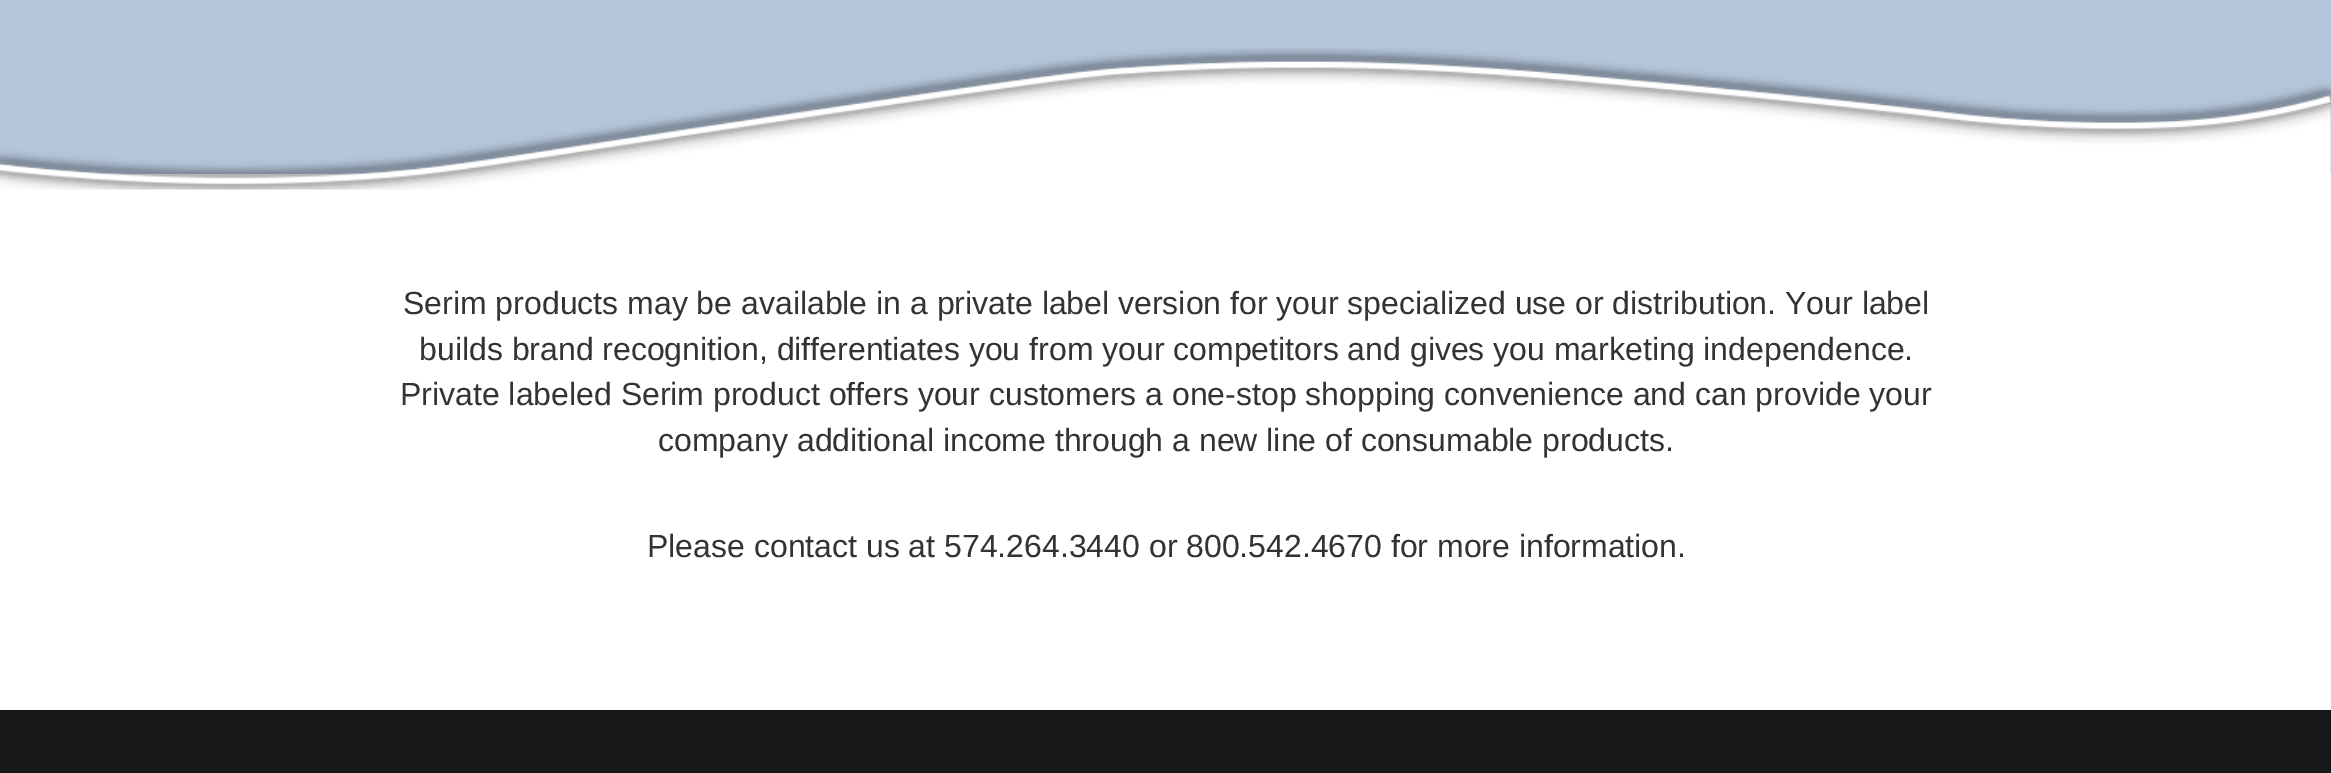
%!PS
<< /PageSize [2331 773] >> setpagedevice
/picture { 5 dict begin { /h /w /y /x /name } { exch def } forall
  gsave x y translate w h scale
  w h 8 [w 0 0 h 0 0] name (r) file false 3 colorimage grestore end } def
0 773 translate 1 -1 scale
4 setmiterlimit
1 setgray
0 0 2331 773 rectfill
0.702 0.773 0.859 setrgbcolor
0 0 2331 174 rectfill
(img1.rgb) 0 47 2331 143 picture
/LiberationSans-Regular [32 0 0 -32 0 0] selectfont
0.2 setgray
403 314 moveto (Serim products may be available in a private label version for your specialized use or distribution. Your label) show
419 360 moveto (builds brand recognition, differentiates you from your competitors and gives you marketing independence.) show
400 405 moveto (Private labeled Serim product offers your customers a one-stop shopping convenience and can provide your) show
658 451 moveto (company additional income through a new line of consumable products.) show
647 557 moveto (Please contact us at 574.264.3440 or 800.542.4670 for more information.) show
0.09 setgray
0 710 2331 63 rectfill
showpage
